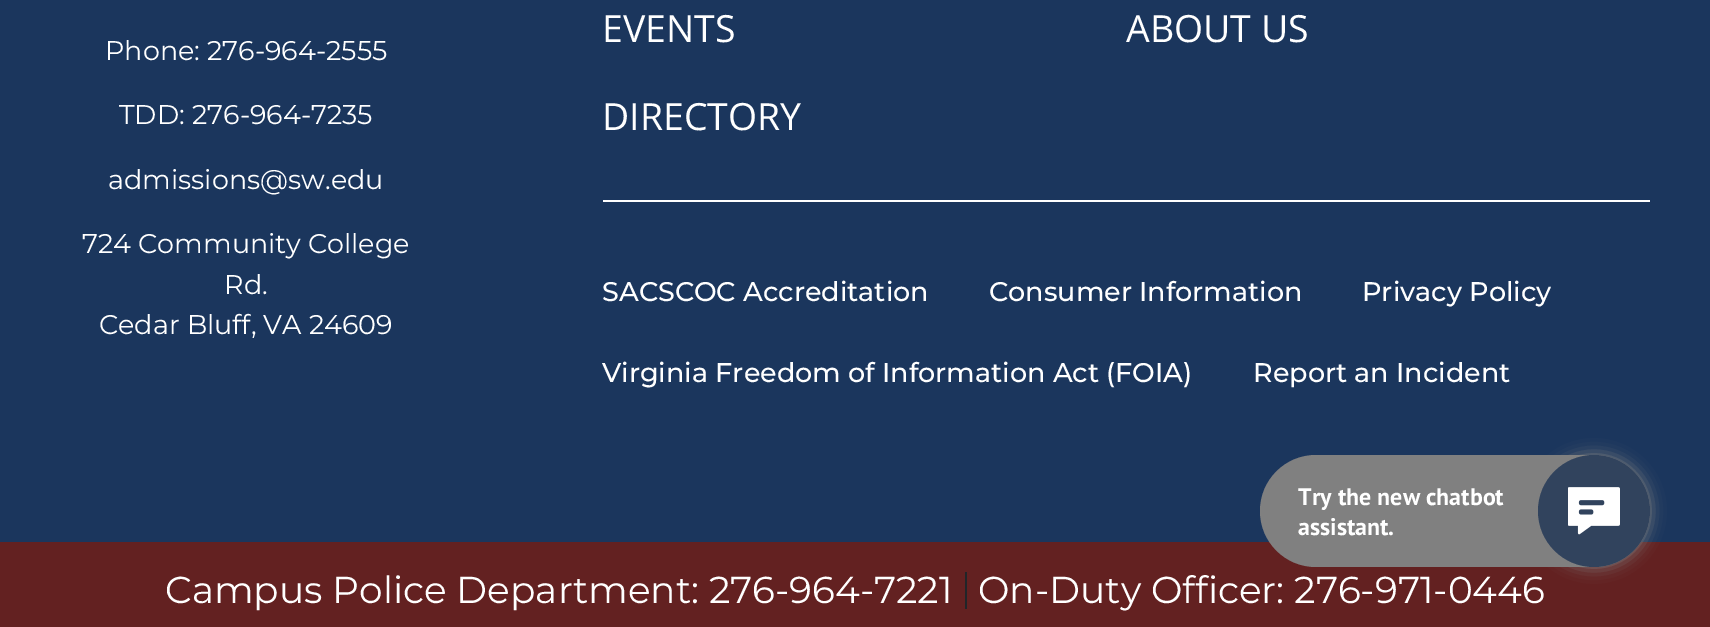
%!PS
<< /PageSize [1710 627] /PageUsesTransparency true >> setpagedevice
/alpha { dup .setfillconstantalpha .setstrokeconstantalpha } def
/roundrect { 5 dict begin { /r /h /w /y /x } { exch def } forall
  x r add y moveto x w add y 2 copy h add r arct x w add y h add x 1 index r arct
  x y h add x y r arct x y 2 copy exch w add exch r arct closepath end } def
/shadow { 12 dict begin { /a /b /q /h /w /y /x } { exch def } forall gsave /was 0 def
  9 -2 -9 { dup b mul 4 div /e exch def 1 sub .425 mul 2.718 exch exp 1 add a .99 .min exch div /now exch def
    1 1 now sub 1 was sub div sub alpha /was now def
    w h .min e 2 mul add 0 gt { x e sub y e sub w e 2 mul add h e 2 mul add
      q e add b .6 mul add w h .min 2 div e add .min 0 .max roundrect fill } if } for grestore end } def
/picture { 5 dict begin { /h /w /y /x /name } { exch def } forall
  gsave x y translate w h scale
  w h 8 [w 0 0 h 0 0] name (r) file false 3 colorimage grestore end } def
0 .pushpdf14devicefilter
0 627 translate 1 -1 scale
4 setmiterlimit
0.106 0.212 0.365 setrgbcolor
0 0 1710 627 rectfill
/Montserrat-Regular [27 0 0 -27 0 0] selectfont
1 setgray
105 60 moveto (Phone: 276-964-2555) show
119 124 moveto (TDD: 276-964-7235) show
108 189 moveto (admissions@sw.edu) show
82 253 moveto (724 Community College) show
224 294 moveto (Rd.) show
99 334 moveto (Cedar Bluff, VA 24609) show
603 200 1047 2 rectfill
/OpenSans-Regular [37.5 0 0 -37.5 0 0] selectfont
602 42 moveto (EVENTS) show
1126 42 moveto (ABOUT US) show
602 130 moveto (DIRECTORY) show
/Montserrat-Medium [27 0 0 -27 0 0] selectfont
602 301 moveto (SACSCOC Accreditation) show
989 301 moveto (Consumer Information) show
1362 301 moveto (Privacy Policy) show
602 382 moveto (Virginia Freedom of Information Act \(FOIA\)) show
1253 382 moveto (Report an Incident) show
0.388 0.129 0.129 setrgbcolor
0 542 1710 85 rectfill
0.129 0.145 0.161 setrgbcolor
965 572 2 37 rectfill
/Montserrat-Regular [37.5 0 0 -37.5 0 0] selectfont
1 setgray
165 603 moveto (Campus Police Department: 276-964-7221) show
978 603 moveto (On-Duty Officer: 276-971-0446) show
0.502 setgray
1260 455 390 112 56 roundrect fill
1538 455 112 112 56 7.5 1 shadow
0.192 0.263 0.365 setrgbcolor
newpath 1594 511 56 0 360 arc closepath fill
(img1.rgb) 1568 487 52 48 picture
/PTSans-Bold [24 0 0 -24 0 0] selectfont
1 setgray
1298 505 moveto (Try the new chatbot) show
1298 535 moveto (assistant.) show
.poppdf14devicefilter showpage
